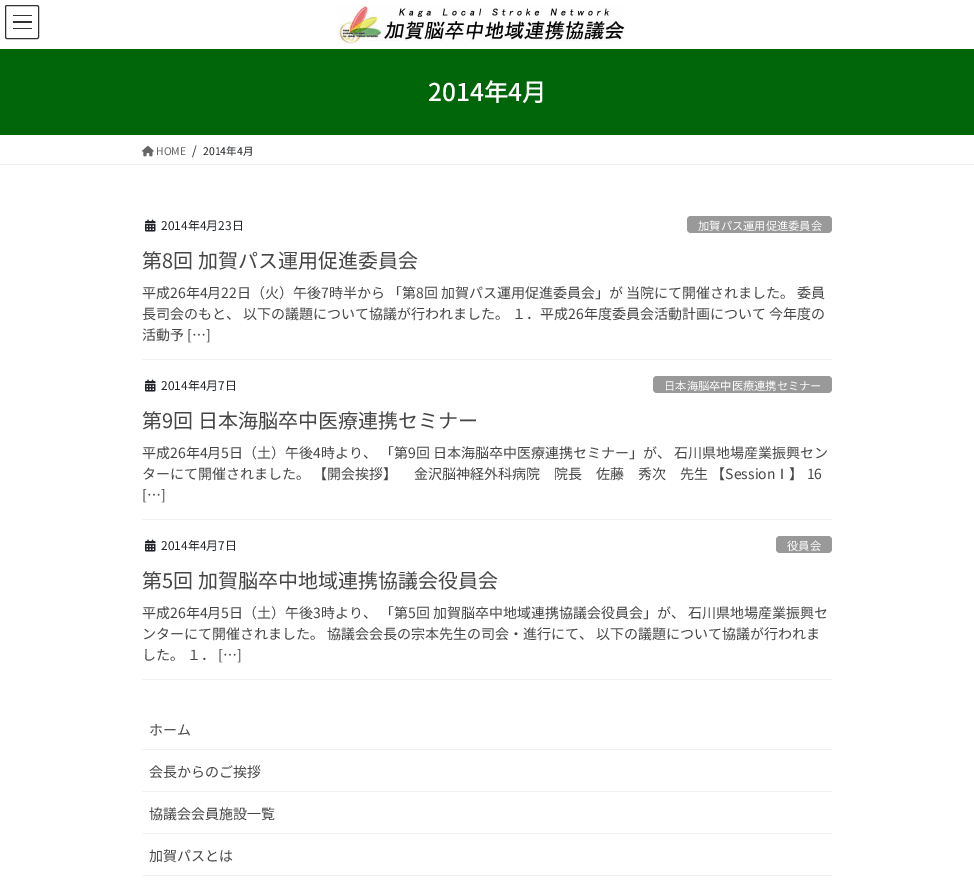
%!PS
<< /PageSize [974 881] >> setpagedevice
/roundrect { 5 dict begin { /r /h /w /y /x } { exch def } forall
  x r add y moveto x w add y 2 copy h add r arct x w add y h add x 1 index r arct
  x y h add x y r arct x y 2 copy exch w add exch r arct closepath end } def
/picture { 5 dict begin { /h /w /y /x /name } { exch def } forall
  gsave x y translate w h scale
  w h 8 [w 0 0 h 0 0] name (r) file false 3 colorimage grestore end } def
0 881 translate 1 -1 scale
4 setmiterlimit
1 setgray
0 0 974 881 rectfill
0.2 setgray
13 15 19 1 rectfill
13 21 19 2 rectfill
13 28 19 1 rectfill
5.5 5.5 33 33 1.5 roundrect stroke
(img1.rgb) 337 5 288 40 picture
0.004 0.4 0.035 setrgbcolor
0 49 974 86 rectfill
/NotoSansJP-Medium [24.5 0 0 -24.5 0 0] selectfont
1 setgray
428 101 moveto (2014年4月) show
0.949 setgray
0 164 974 1 rectfill
(img2.rgb) 142 145 12 12 picture
/NotoSansJP-Regular [10.5 0 0 -10.5 0 0] selectfont
0.4 setgray
156 155 moveto (HOME) show
/NotoSansJP-Regular [12 0 0 -12 0 0] selectfont
0.129 0.145 0.161 setrgbcolor
192 155 moveto (/) show
/NotoSansJP-Regular [10.5 0 0 -10.5 0 0] selectfont
203 155 moveto (2014年4月) show
0.949 setgray
142 359 690 1 rectfill
(img3.rgb) 145 219 11 13 picture
/NotoSansJP-Regular [12 0 0 -12 0 0] selectfont
0.129 0.145 0.161 setrgbcolor
161 230 moveto (2014年4月23日) show
0.6 setgray
687 216 145 17 4 roundrect fill
/NotoSansJP-Regular [11.25 0 0 -11.25 0 0] selectfont
1 setgray
698 230 moveto (加賀パス運用促進委員会) show
/NotoSansJP-Regular [20 0 0 -20 0 0] selectfont
0.275 setgray
142 268 moveto (第8回 加賀パス運用促進委員会) show
/NotoSansJP-Regular [14 0 0 -14 0 0] selectfont
142 298 moveto (平成26年4月22日（火）午後7時半から 「第8回 加賀パス運用促進委員会」が 当院にて開催されました。 委員) show
142 319 moveto (長司会のもと、 以下の議題について協議が行われました。 １．平成26年度委員会活動計画について 今年度の) show
142 340 moveto (活動予 […]) show
0.949 setgray
142 519 690 1 rectfill
(img3.rgb) 145 379 11 13 picture
/NotoSansJP-Regular [12 0 0 -12 0 0] selectfont
0.129 0.145 0.161 setrgbcolor
161 390 moveto (2014年4月7日) show
0.6 setgray
653 376 179 17 4 roundrect fill
/NotoSansJP-Regular [11.25 0 0 -11.25 0 0] selectfont
1 setgray
664 390 moveto (日本海脳卒中医療連携セミナー) show
/NotoSansJP-Regular [20 0 0 -20 0 0] selectfont
0.275 setgray
142 428 moveto (第9回 日本海脳卒中医療連携セミナー) show
/NotoSansJP-Regular [14 0 0 -14 0 0] selectfont
142 458 moveto (平成26年4月5日（土）午後4時より、 「第9回 日本海脳卒中医療連携セミナー」が、 石川県地場産業振興セン) show
142 479 moveto (ターにて開催されました。 【開会挨拶】 　金沢脳神経外科病院　院長　佐藤　秀次　先生 【SessionⅠ】 16) show
142 500 moveto ([…]) show
0.949 setgray
142 679 690 1 rectfill
(img3.rgb) 145 539 11 13 picture
/NotoSansJP-Regular [12 0 0 -12 0 0] selectfont
0.129 0.145 0.161 setrgbcolor
161 550 moveto (2014年4月7日) show
0.6 setgray
776 536 56 17 4 roundrect fill
/NotoSansJP-Regular [11.25 0 0 -11.25 0 0] selectfont
1 setgray
787 550 moveto (役員会) show
/NotoSansJP-Regular [20 0 0 -20 0 0] selectfont
0.275 setgray
142 588 moveto (第5回 加賀脳卒中地域連携協議会役員会) show
/NotoSansJP-Regular [14 0 0 -14 0 0] selectfont
142 618 moveto (平成26年4月5日（土）午後3時より、 「第5回 加賀脳卒中地域連携協議会役員会」が、 石川県地場産業振興セ) show
142 639 moveto (ンターにて開催されました。 協議会会長の宗本先生の司会・進行にて、 以下の議題について協議が行われま) show
142 660 moveto (した。 １． […]) show
0.949 setgray
142 749 690 1 rectfill
0.275 setgray
149 735 moveto (ホーム) show
0.949 setgray
142 791 690 1 rectfill
0.275 setgray
149 777 moveto (会長からのご挨拶) show
0.949 setgray
142 833 690 1 rectfill
0.275 setgray
149 819 moveto (協議会会員施設一覧) show
0.949 setgray
142 875 690 1 rectfill
0.275 setgray
149 861 moveto (加賀パスとは) show
showpage
